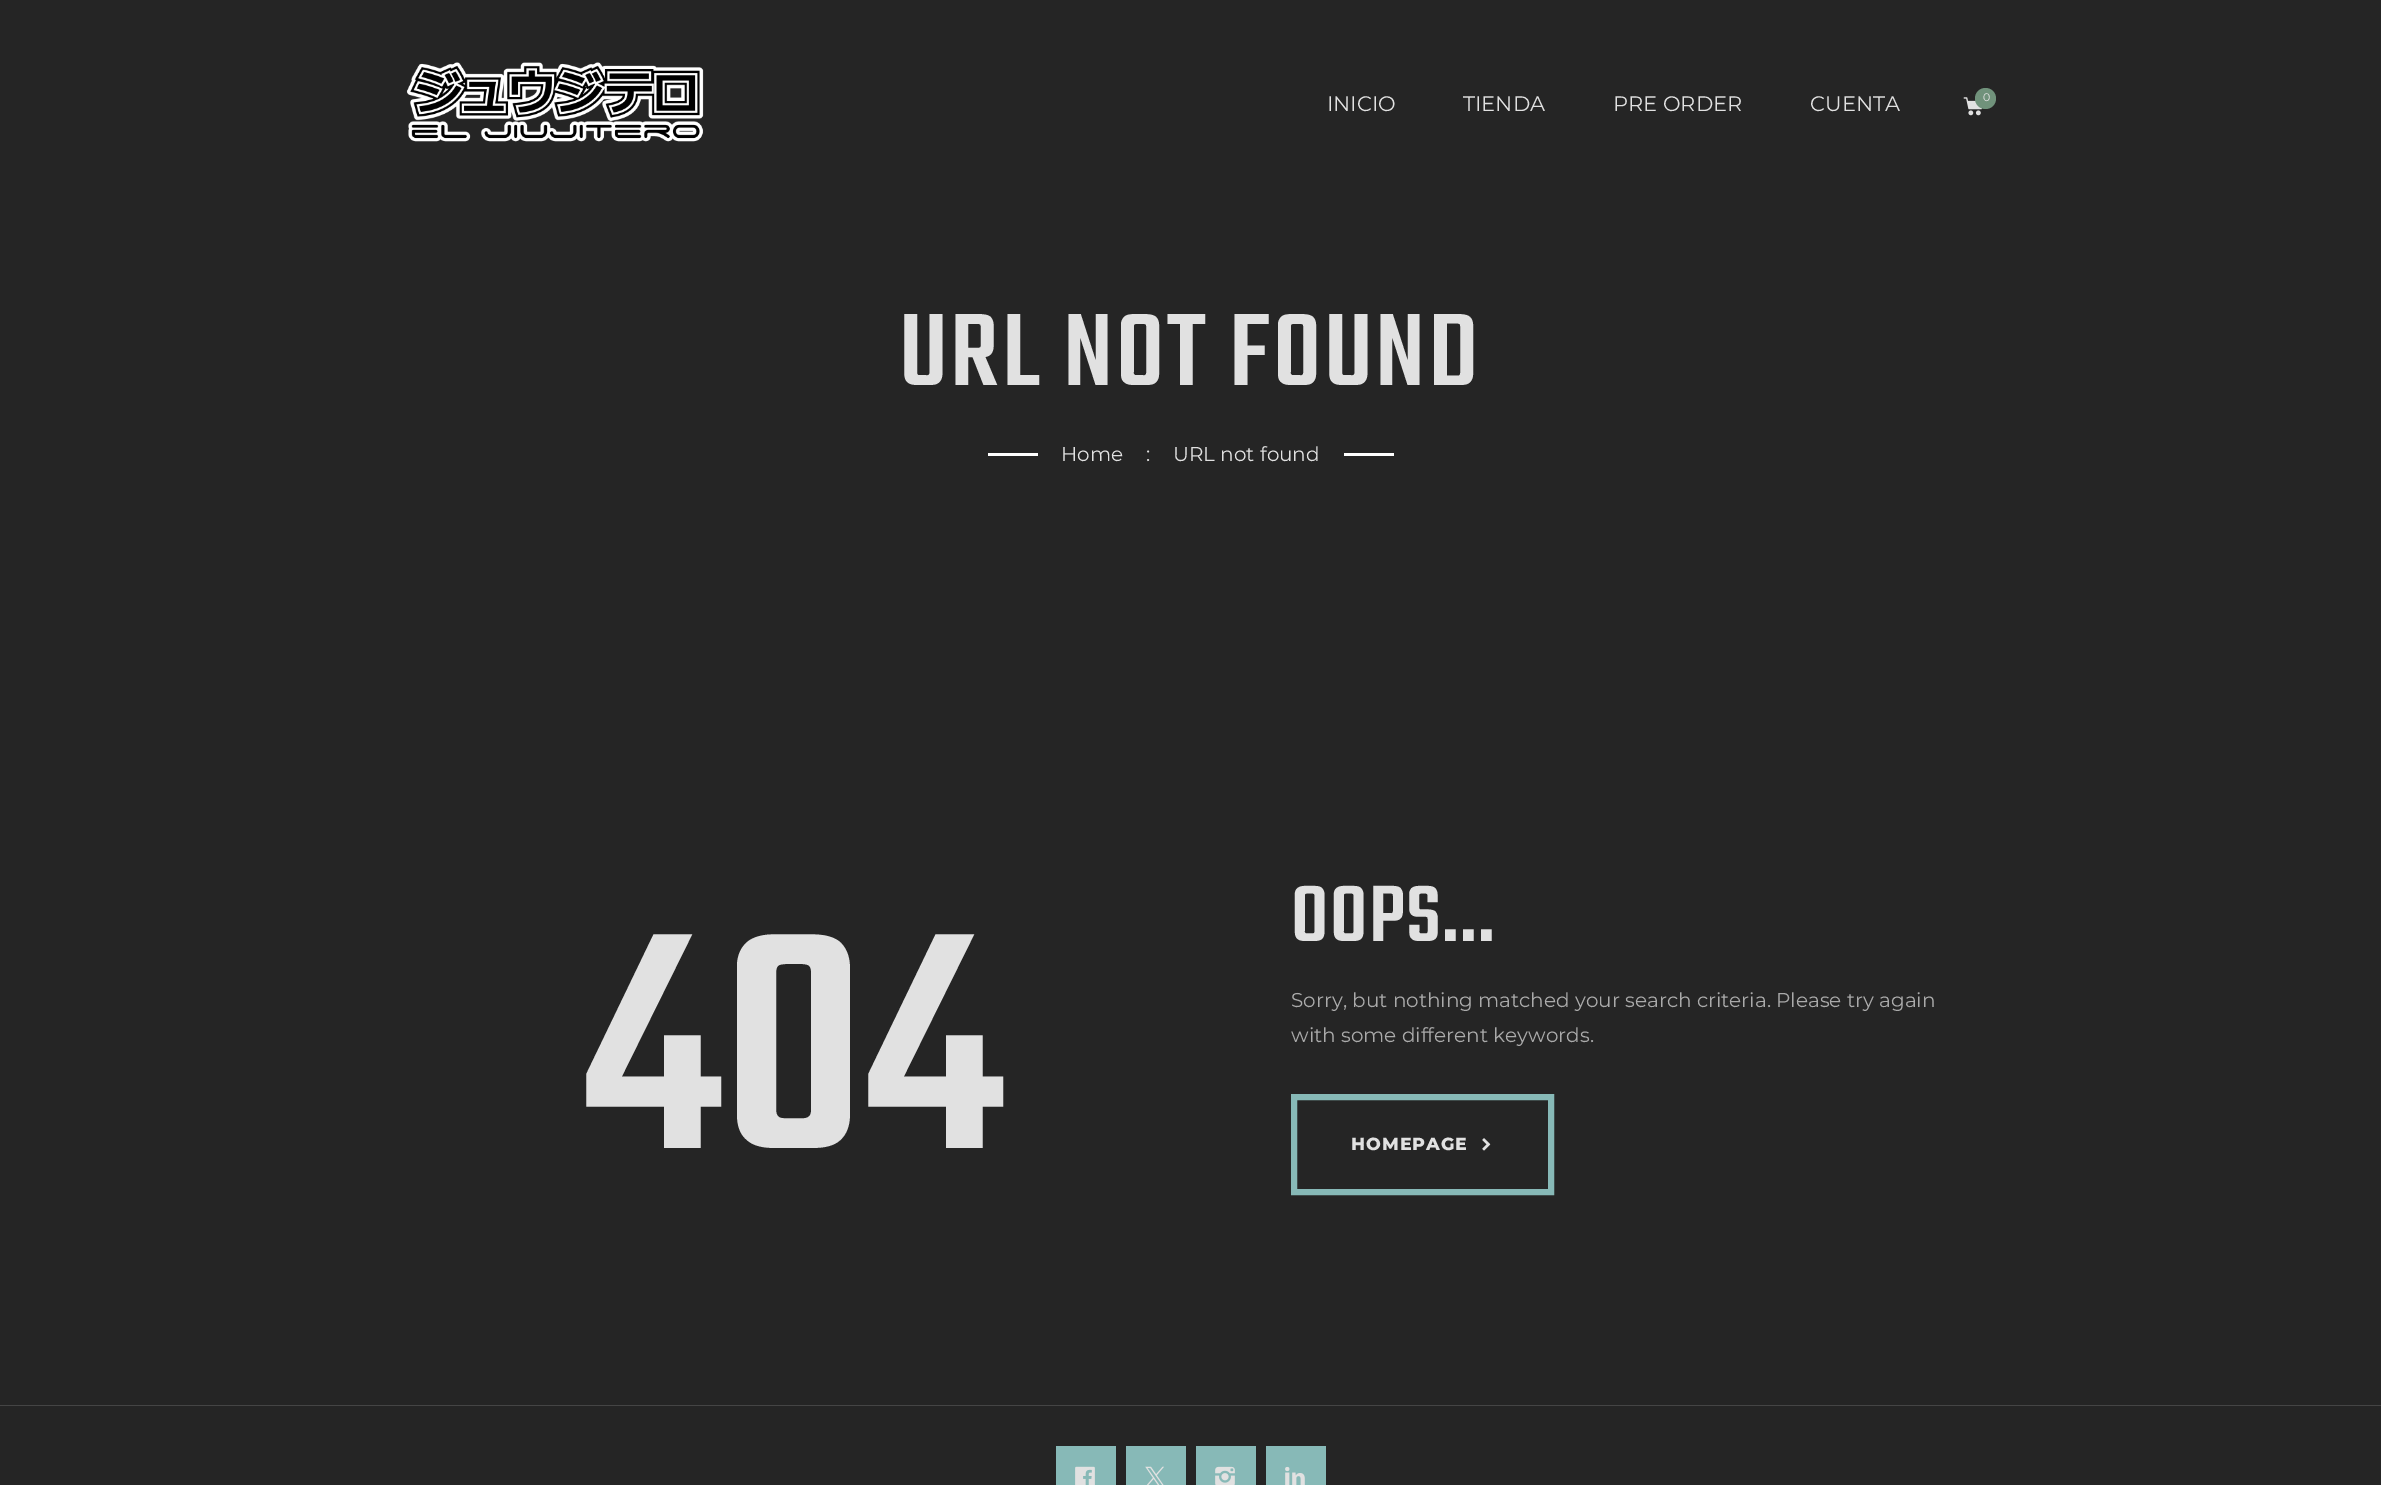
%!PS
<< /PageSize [2381 1485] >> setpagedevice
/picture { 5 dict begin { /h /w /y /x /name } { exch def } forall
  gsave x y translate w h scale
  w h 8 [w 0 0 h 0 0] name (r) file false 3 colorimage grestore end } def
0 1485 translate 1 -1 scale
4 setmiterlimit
0.145 setgray
0 0 2381 1485 rectfill
(img1.rgb) 406 62 298 80 picture
/Montserrat-Regular [21 0 0 -21 0 0] selectfont
0.882 setgray
1327 111 moveto (INICIO) show
1463 111 moveto (TIENDA) show
1613 111 moveto (PRE ORDER) show
1810 111 moveto (CUENTA) show
(img2.rgb) 1963 97 20 19 picture
0.439 0.573 0.482 setrgbcolor
newpath 1985.5 98.5 10.5 0 360 arc closepath fill
/Montserrat-Regular [11 0 0 -11 0 0] selectfont
0.882 setgray
1983 101 moveto (0) show
/Teko-Medium [112.5 0 0 -112.5 0 0] selectfont
899 385 moveto 2.75 0 (URL NOT FOUND) ashow
1 setgray
988 453 50 3 rectfill
/Montserrat-Regular [20 0 0 -20 0 0] selectfont
0.882 setgray
1061 461 moveto (Home) show
1146 461 moveto (:) show
1173 461 moveto (URL not found) show
1 setgray
1344 453 50 3 rectfill
/Teko-Medium [340 0 0 -340 0 0] selectfont
0.882 setgray
584 1148 moveto (404) show
/Teko-Medium [87.5 0 0 -87.5 0 0] selectfont
1291 941 moveto 1.25 0 (OOPS...) ashow
/Montserrat-Regular [20 0 0 -20 0 0] selectfont
0.667 setgray
1291 1007 moveto (Sorry, but nothing matched your search criteria. Please try again) show
1291 1042 moveto (with some different keywords.) show
0.529 0.725 0.718 setrgbcolor
6 setlinewidth
1294 1097 257 95 rectstroke
/Montserrat-ExtraBold [17.5 0 0 -17.5 0 0] selectfont
0.882 setgray
1351 1150 moveto 1 0 (HOMEPAGE) ashow
(img3.rgb) 1482 1138 9 13 picture
0.271 setgray
0 1405 2381 1 rectfill
0.529 0.725 0.718 setrgbcolor
1056 1446 60 39 rectfill
(img4.rgb) 1075 1466 20 19 picture
1126 1446 60 39 rectfill
(img5.rgb) 1145 1466 19 19 picture
1196 1446 60 39 rectfill
(img6.rgb) 1215 1466 20 19 picture
1266 1446 60 39 rectfill
(img7.rgb) 1285 1466 20 19 picture
showpage
